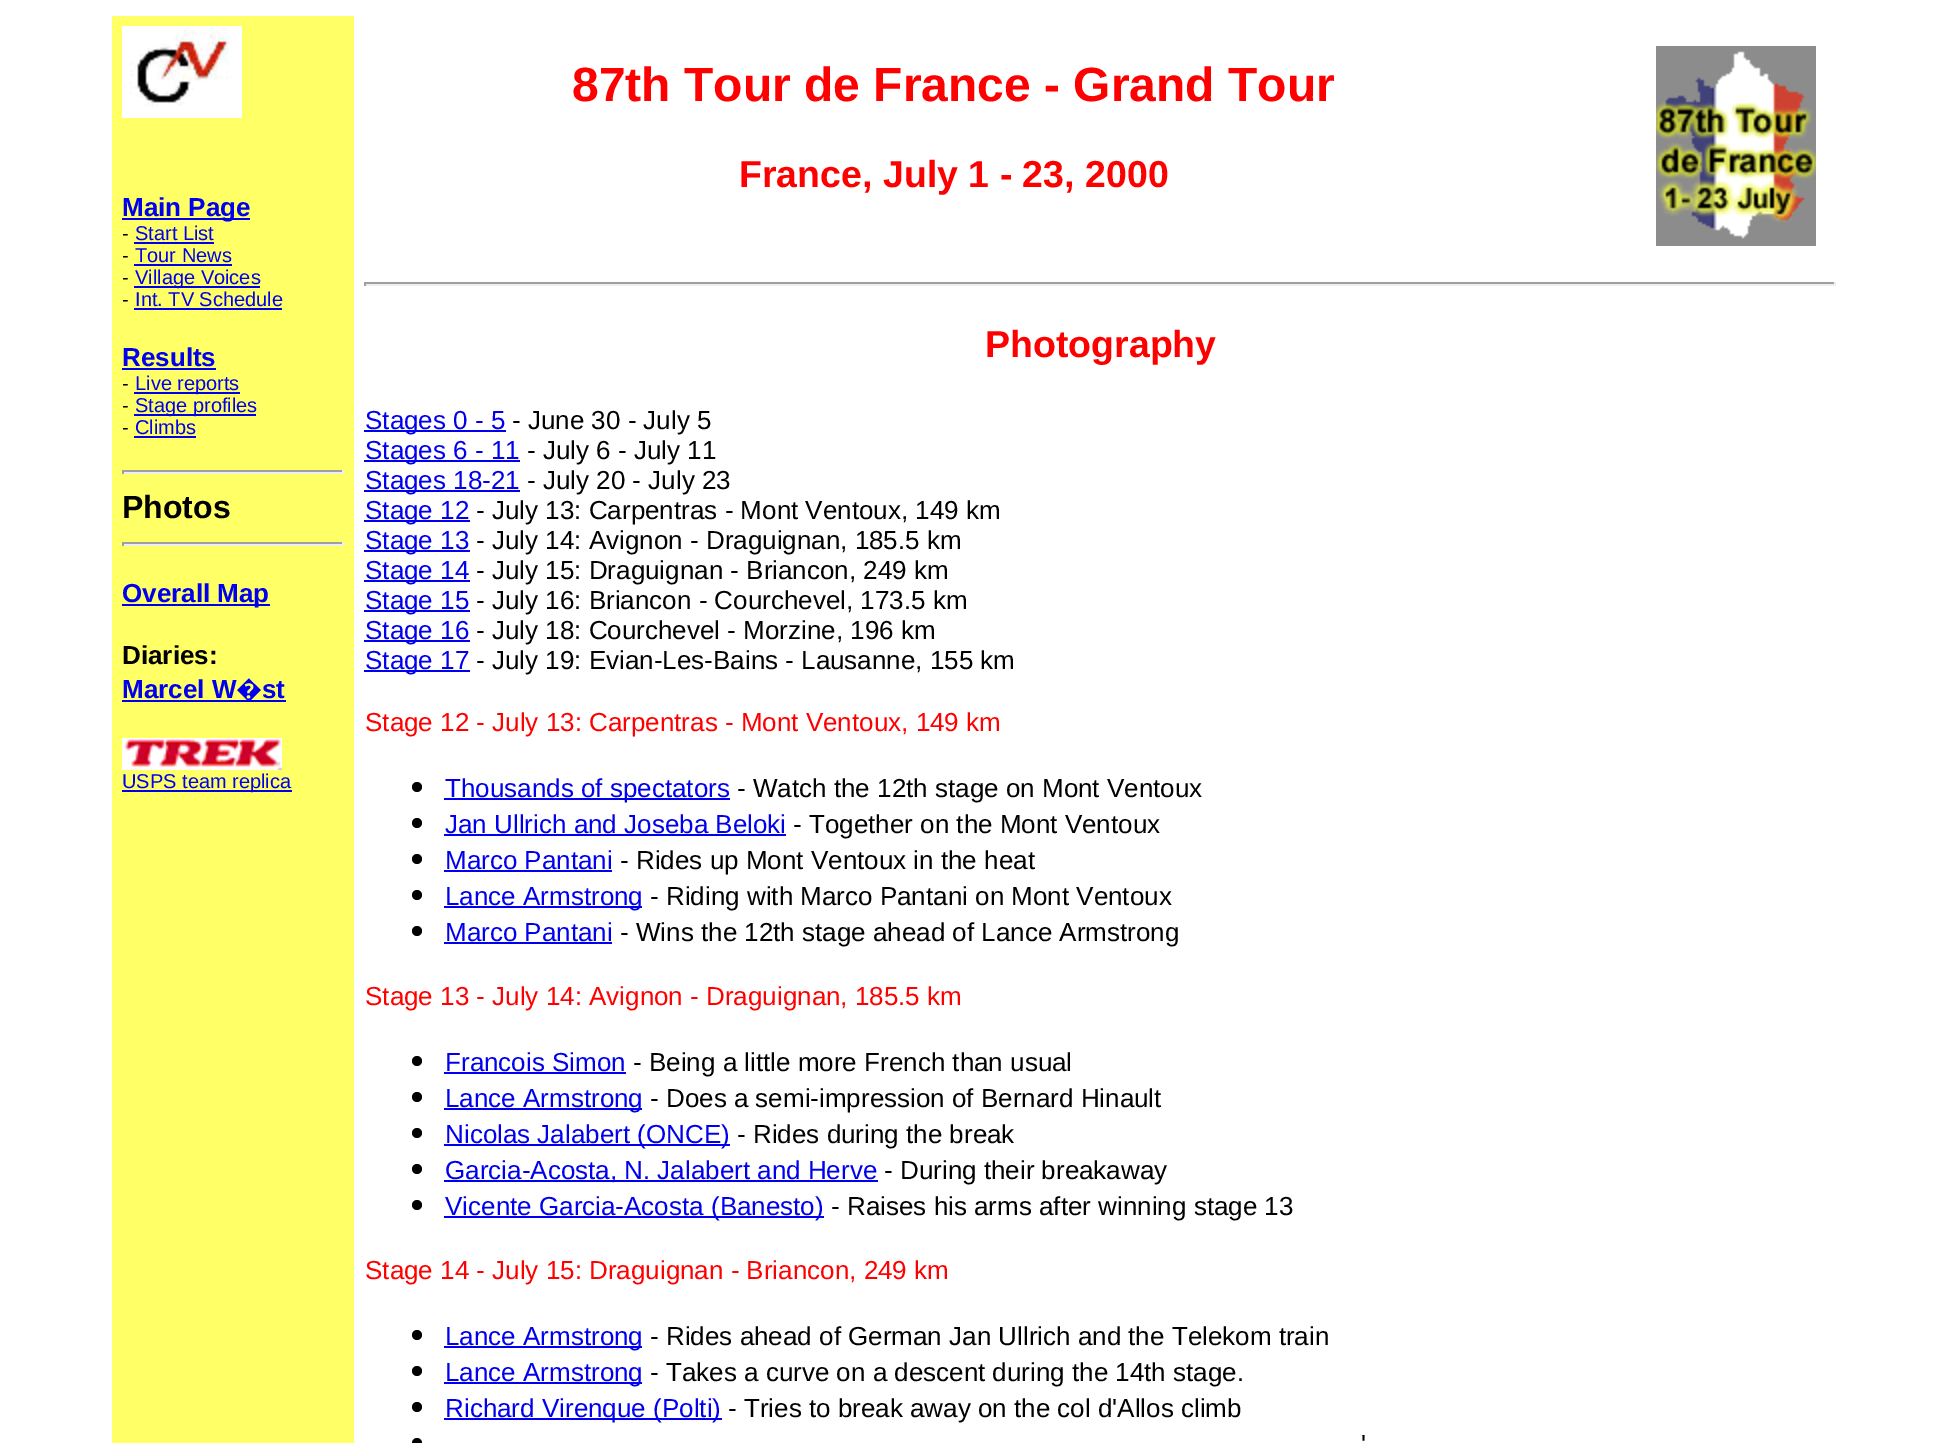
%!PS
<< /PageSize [1958 1443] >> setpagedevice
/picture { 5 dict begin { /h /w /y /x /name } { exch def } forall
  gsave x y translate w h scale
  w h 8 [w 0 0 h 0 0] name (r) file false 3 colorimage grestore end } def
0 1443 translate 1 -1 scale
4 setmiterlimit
1 setgray
0 0 1958 1443 rectfill
1 1 0.4 setrgbcolor
112 16 242 1427 rectfill
(img1.rgb) 122 26 120 92 picture
0 0 0.933 setrgbcolor
122 218 128 2 rectfill
/LiberationSans-Bold [26 0 0 -26 0 0] selectfont
122 216 moveto (Main Page) show
/LiberationSans-Regular [20 0 0 -20 0 0] selectfont
0 setgray
122 240 moveto (-) show
0 0 0.933 setrgbcolor
135 240 moveto (Start List) show
134 242 80 2 rectfill
0 setgray
122 262 moveto (-) show
0 0 0.933 setrgbcolor
135 262 moveto (Tour News) show
134 264 98 2 rectfill
0 setgray
122 284 moveto (-) show
0 0 0.933 setrgbcolor
134 286 126 2 rectfill
135 284 moveto (Village Voices) show
0 setgray
122 306 moveto (-) show
0 0 0.933 setrgbcolor
135 306 moveto (Int. TV Schedule) show
134 308 148 2 rectfill
/LiberationSans-Bold [26 0 0 -26 0 0] selectfont
122 366 moveto (Results) show
122 368 94 2 rectfill
/LiberationSans-Regular [20 0 0 -20 0 0] selectfont
0 setgray
122 390 moveto (-) show
0 0 0.933 setrgbcolor
134 392 106 2 rectfill
135 390 moveto (Live reports) show
0 setgray
122 412 moveto (-) show
0 0 0.933 setrgbcolor
134 414 122 2 rectfill
135 412 moveto (Stage profiles) show
0 setgray
122 434 moveto (-) show
0 0 0.933 setrgbcolor
135 434 moveto (Climbs) show
134 436 62 2 rectfill
0.624 setgray
122 470 222 2 rectfill
0.933 setgray
342 470 2 4 rectfill
122 472 222 2 rectfill
0.624 setgray
122 470 2 4 rectfill
/LiberationSans-Bold [32 0 0 -32 0 0] selectfont
0 setgray
122 518 moveto (Photos) show
0.624 setgray
122 542 222 2 rectfill
0.933 setgray
342 542 2 4 rectfill
122 544 222 2 rectfill
0.624 setgray
122 542 2 4 rectfill
0 0 0.933 setrgbcolor
122 604 148 2 rectfill
/LiberationSans-Bold [26 0 0 -26 0 0] selectfont
122 602 moveto (Overall Map) show
0 setgray
122 664 moveto (Diaries:) show
0 0 0.933 setrgbcolor
122 698 moveto (Marcel W) show
122 700 164 2 rectfill
/NotoSans-Bold [26 0 0 -26 0 0] selectfont
236 698 moveto (�) show
/LiberationSans-Bold [26 0 0 -26 0 0] selectfont
262 698 moveto (st) show
(img2.rgb) 122 738 160 32 picture
122 790 170 2 rectfill
/LiberationSans-Regular [20 0 0 -20 0 0] selectfont
122 788 moveto (USPS team replica) show
/LiberationSans-Bold [48 0 0 -48 0 0] selectfont
1 0 0 setrgbcolor
572 101 moveto (87th Tour de France - Grand Tour) show
/LiberationSans-Bold [37.5 0 0 -37.5 0 0] selectfont
739 187 moveto (France, July 1 - 23, 2000) show
(img3.rgb) 1656 46 160 200 picture
0.624 setgray
364 282 1472 2 rectfill
0.933 setgray
1834 282 2 4 rectfill
364 284 1472 2 rectfill
0.624 setgray
364 282 2 4 rectfill
1 0 0 setrgbcolor
985 357 moveto (Photography) show
0 0 0.933 setrgbcolor
364 430 142 2 rectfill
/LiberationSans-Regular [26 0 0 -26 0 0] selectfont
365 429 moveto (Stages 0 - 5) show
0 setgray
512 429 moveto (- June 30 - July 5) show
0 0 0.933 setrgbcolor
364 460 156 2 rectfill
365 459 moveto (Stages 6 - 11) show
0 setgray
527 459 moveto (- July 6 - July 11) show
0 0 0.933 setrgbcolor
364 490 156 2 rectfill
365 489 moveto (Stages 18-21) show
0 setgray
527 489 moveto (- July 20 - July 23) show
0 0 0.933 setrgbcolor
364 520 106 2 rectfill
365 519 moveto (Stage 12) show
0 setgray
476 519 moveto (- July 13: Carpentras - Mont Ventoux, 149 km) show
0 0 0.933 setrgbcolor
364 550 106 2 rectfill
365 549 moveto (Stage 13) show
0 setgray
476 549 moveto (- July 14: Avignon - Draguignan, 185.5 km) show
0 0 0.933 setrgbcolor
364 580 106 2 rectfill
365 579 moveto (Stage 14) show
0 setgray
476 579 moveto (- July 15: Draguignan - Briancon, 249 km) show
0 0 0.933 setrgbcolor
364 610 106 2 rectfill
365 609 moveto (Stage 15) show
0 setgray
476 609 moveto (- July 16: Briancon - Courchevel, 173.5 km) show
0 0 0.933 setrgbcolor
364 640 106 2 rectfill
365 639 moveto (Stage 16) show
0 setgray
476 639 moveto (- July 18: Courchevel - Morzine, 196 km) show
0 0 0.933 setrgbcolor
364 670 106 2 rectfill
365 669 moveto (Stage 17) show
0 setgray
476 669 moveto (- July 19: Evian-Les-Bains - Lausanne, 155 km) show
1 0 0 setrgbcolor
365 731 moveto (Stage 12 - July 13: Carpentras - Mont Ventoux, 149 km) show
0 setgray
newpath 417 787 5 0 360 arc closepath fill
0 0 0.933 setrgbcolor
444 798 286 2 rectfill
445 797 moveto (Thousands of spectators) show
0 setgray
737 797 moveto (- Watch the 12th stage on Mont Ventoux) show
newpath 417 823 5 0 360 arc closepath fill
0 0 0.933 setrgbcolor
445 833 moveto (Jan Ullrich and Joseba Beloki) show
444 834 342 2 rectfill
0 setgray
793 833 moveto (- Together on the Mont Ventoux) show
newpath 417 859 5 0 360 arc closepath fill
0 0 0.933 setrgbcolor
445 869 moveto (Marco Pantani) show
444 870 168 2 rectfill
0 setgray
620 869 moveto (- Rides up Mont Ventoux in the heat) show
newpath 417 895 5 0 360 arc closepath fill
0 0 0.933 setrgbcolor
444 906 198 2 rectfill
445 905 moveto (Lance Armstrong) show
0 setgray
650 905 moveto (- Riding with Marco Pantani on Mont Ventoux) show
newpath 417 931 5 0 360 arc closepath fill
0 0 0.933 setrgbcolor
445 941 moveto (Marco Pantani) show
444 942 168 2 rectfill
0 setgray
620 941 moveto (- Wins the 12th stage ahead of Lance Armstrong) show
1 0 0 setrgbcolor
365 1005 moveto (Stage 13 - July 14: Avignon - Draguignan, 185.5 km) show
0 setgray
newpath 417 1061 5 0 360 arc closepath fill
0 0 0.933 setrgbcolor
445 1071 moveto (Francois Simon) show
444 1072 182 2 rectfill
0 setgray
633 1071 moveto (- Being a little more French than usual) show
newpath 417 1097 5 0 360 arc closepath fill
0 0 0.933 setrgbcolor
444 1108 198 2 rectfill
445 1107 moveto (Lance Armstrong) show
0 setgray
650 1107 moveto (- Does a semi-impression of Bernard Hinault) show
newpath 417 1133 5 0 360 arc closepath fill
0 0 0.933 setrgbcolor
444 1144 286 2 rectfill
445 1143 moveto (Nicolas Jalabert \(ONCE\)) show
0 setgray
737 1143 moveto (- Rides during the break) show
newpath 417 1169 5 0 360 arc closepath fill
0 0 0.933 setrgbcolor
444 1180 434 2 rectfill
445 1179 moveto (Garcia-Acosta, N. Jalabert and Herve) show
0 setgray
884 1179 moveto (- During their breakaway) show
newpath 417 1205 5 0 360 arc closepath fill
0 0 0.933 setrgbcolor
444 1216 380 2 rectfill
445 1215 moveto (Vicente Garcia-Acosta \(Banesto\)) show
0 setgray
831 1215 moveto (- Raises his arms after winning stage 13) show
1 0 0 setrgbcolor
365 1279 moveto (Stage 14 - July 15: Draguignan - Briancon, 249 km) show
0 setgray
newpath 417 1335 5 0 360 arc closepath fill
0 0 0.933 setrgbcolor
444 1346 198 2 rectfill
445 1345 moveto (Lance Armstrong) show
0 setgray
650 1345 moveto (- Rides ahead of German Jan Ullrich and the Telekom train) show
newpath 417 1371 5 0 360 arc closepath fill
0 0 0.933 setrgbcolor
444 1382 198 2 rectfill
445 1381 moveto (Lance Armstrong) show
0 setgray
650 1381 moveto (- Takes a curve on a descent during the 14th stage.) show
newpath 417 1407 5 0 360 arc closepath fill
0 0 0.933 setrgbcolor
444 1418 278 2 rectfill
445 1417 moveto (Richard Virenque \(Polti\)) show
0 setgray
728 1417 moveto (- Tries to break away on the col d'Allos climb) show
newpath 417 1443 5 0 360 arc closepath fill
1361 1453 moveto (') show
showpage
